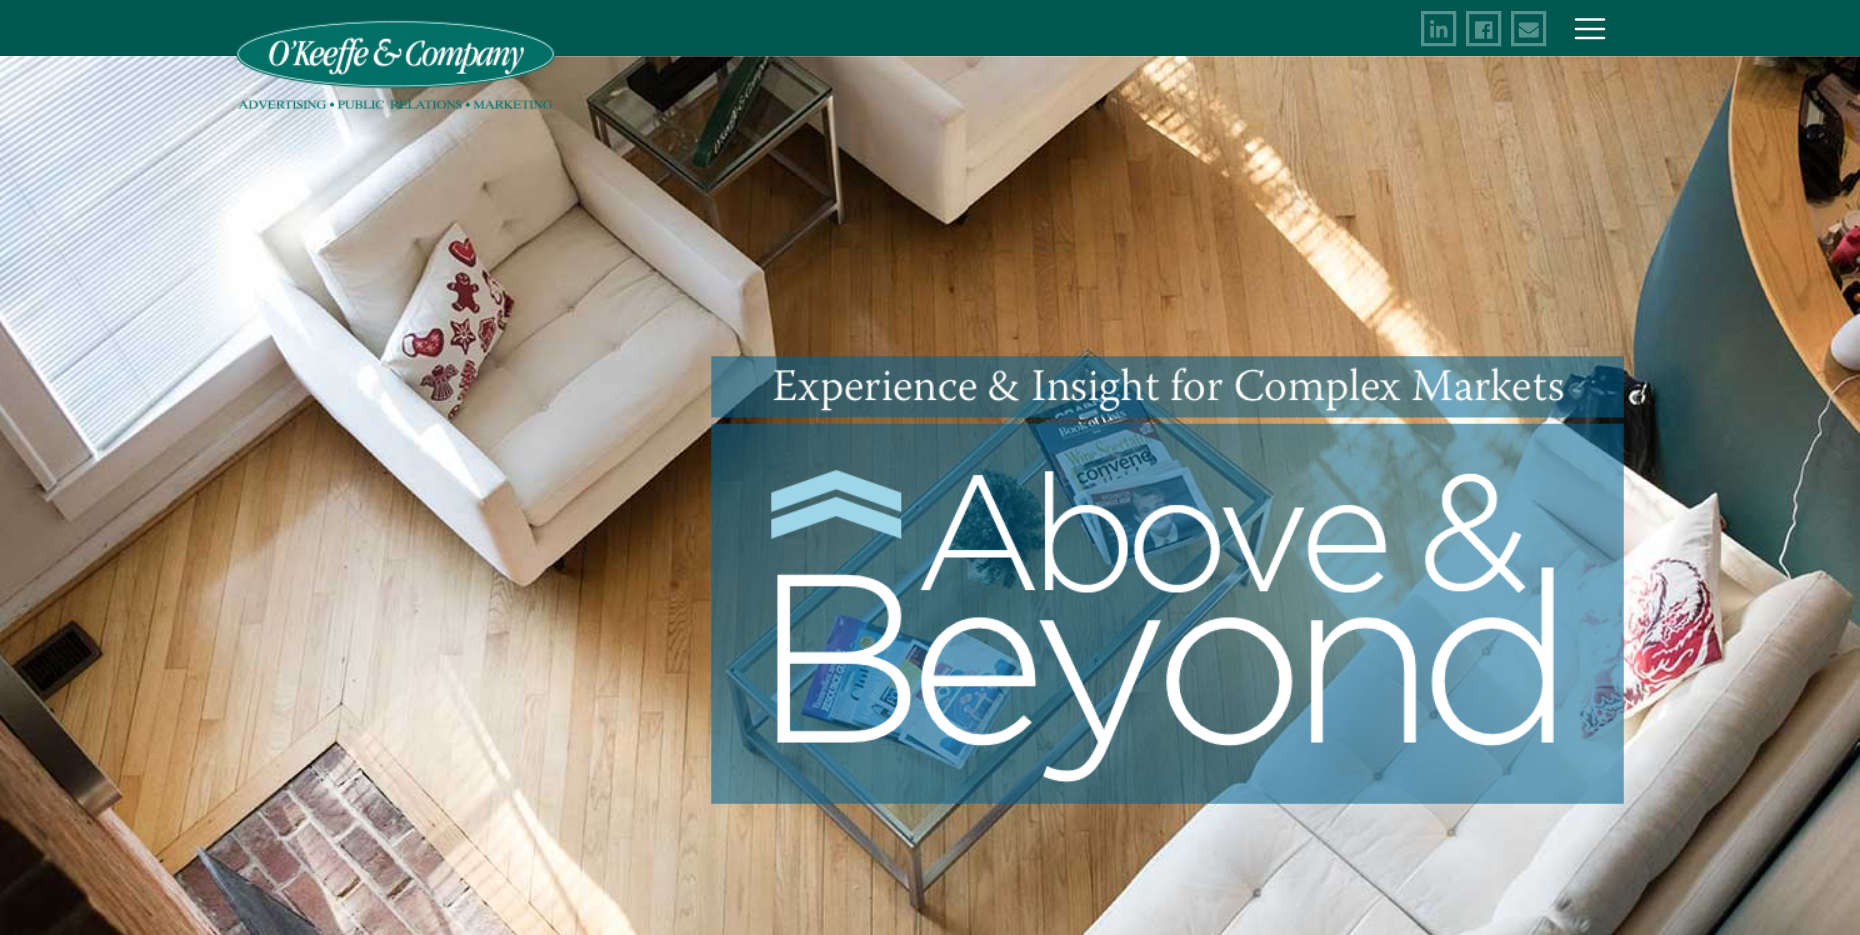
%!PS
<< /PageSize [1860 935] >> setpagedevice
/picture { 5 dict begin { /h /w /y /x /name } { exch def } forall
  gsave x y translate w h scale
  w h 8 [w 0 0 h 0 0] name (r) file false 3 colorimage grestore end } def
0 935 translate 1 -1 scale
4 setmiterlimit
1 setgray
0 0 1860 935 rectfill
0 0.345 0.318 setrgbcolor
0 0 1860 56 rectfill
(img5.rgb) 0 56 1860 879 picture
(img1.rgb) 236 20 319 89 picture
0.329 0.573 0.553 setrgbcolor
3 setlinewidth
1422.5 12.5 32 32 rectstroke
(img2.rgb) 1430 20 18 18 picture
1467.5 12.5 32 32 rectstroke
(img3.rgb) 1475 21 18 18 picture
1512.5 12.5 32 32 rectstroke
(img4.rgb) 1518 22 21 16 picture
1 setgray
2.3 setlinewidth
1 setlinecap
newpath 1576 19.5 moveto 1604 19.5 lineto 1576 29 moveto 1604 29 lineto 1576 38 moveto 1604 38 lineto stroke
(img6.rgb) 711 356 913 448 picture
showpage
